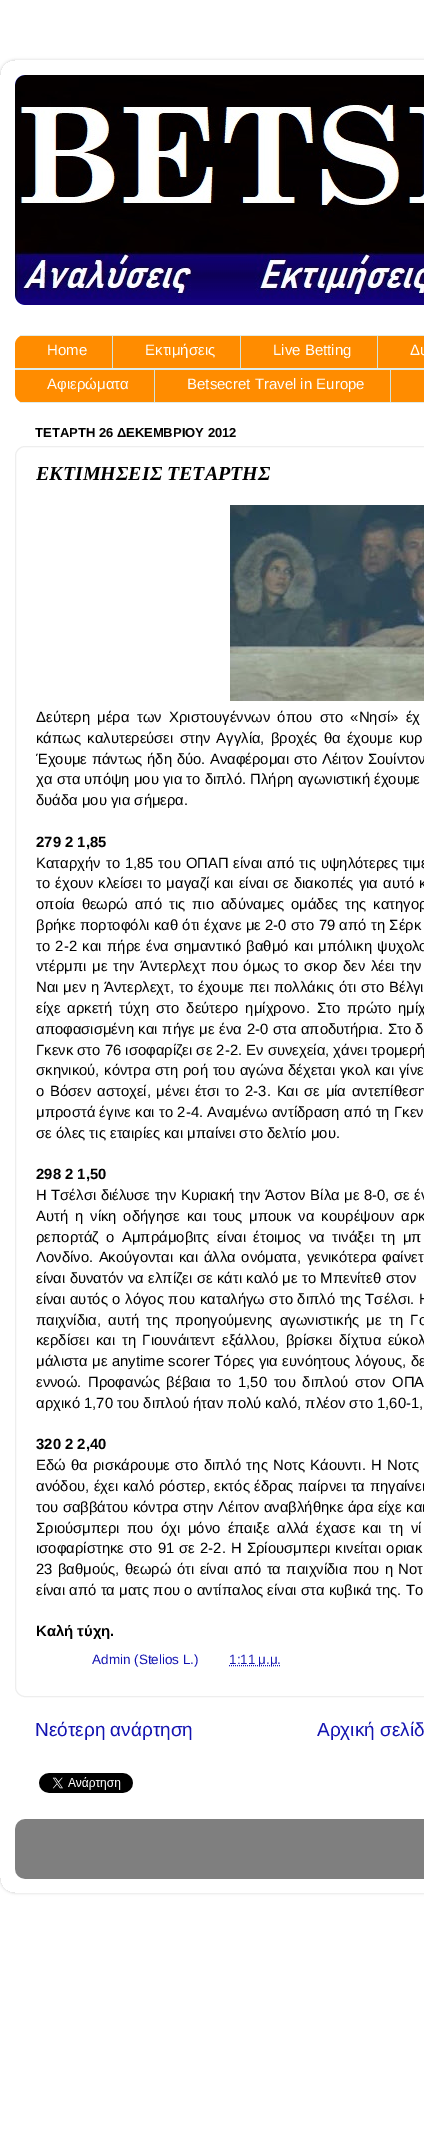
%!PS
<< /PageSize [424 2144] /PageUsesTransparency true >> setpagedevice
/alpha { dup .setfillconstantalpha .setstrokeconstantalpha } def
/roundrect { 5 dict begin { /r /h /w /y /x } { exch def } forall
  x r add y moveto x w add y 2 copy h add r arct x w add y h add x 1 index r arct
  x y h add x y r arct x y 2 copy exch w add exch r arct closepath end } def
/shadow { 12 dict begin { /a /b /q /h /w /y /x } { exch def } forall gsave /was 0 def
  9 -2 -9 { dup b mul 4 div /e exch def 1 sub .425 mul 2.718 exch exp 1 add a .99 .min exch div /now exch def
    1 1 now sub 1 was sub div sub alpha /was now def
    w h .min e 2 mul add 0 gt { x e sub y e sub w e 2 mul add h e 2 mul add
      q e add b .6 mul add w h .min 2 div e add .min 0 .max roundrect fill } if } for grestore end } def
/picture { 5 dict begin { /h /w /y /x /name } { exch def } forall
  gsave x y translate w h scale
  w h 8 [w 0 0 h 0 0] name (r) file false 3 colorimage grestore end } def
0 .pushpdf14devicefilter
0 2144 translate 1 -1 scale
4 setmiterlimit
1 setgray
0 0 424 2144 rectfill
gsave
newpath 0 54 moveto 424 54 lineto 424 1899 lineto 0 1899 lineto closepath 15 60 moveto 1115 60 lineto 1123.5 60 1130 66.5 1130 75 curveto 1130 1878 lineto 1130 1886.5 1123.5 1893 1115 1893 curveto 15 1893 lineto 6.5 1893 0 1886.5 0 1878 curveto 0 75 lineto 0 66.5 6.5 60 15 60 curveto closepath eoclip newpath
0 setgray
0 60 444 1833 15 1.5 0.15 shadow
grestore
0.075 0.075 0.694 setrgbcolor
15 75 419 230 10 roundrect fill
(img1.rgb) 15 75 10 10 picture
(img2.rgb) 15 75 409 230 picture
(img3.rgb) 15 335 10 68 picture
1 0.549 0 setrgbcolor
newpath 25 335 moveto 113 335 lineto 113 369 lineto 15 369 lineto 15 345 lineto 15 339.5 19.5 335 25 335 curveto closepath fill
gsave
15 335 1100 68 10 roundrect clip newpath
0.878 0.929 0.914 setrgbcolor
15 335 98 1 rectfill
grestore
0.878 0.929 0.914 setrgbcolor
15 368 409 1 rectfill
0.82 0.89 0.859 setrgbcolor
112 336 1 32 rectfill
/LiberationSans-Regular [15 0 0 -15 0 0] selectfont
1 setgray
47 355 moveto (Home) show
1 0.549 0 setrgbcolor
113 336 127 32 rectfill
0.878 0.929 0.914 setrgbcolor
113 335 311 1 rectfill
0.82 0.89 0.859 setrgbcolor
240 336 1 32 rectfill
1 setgray
145 355 moveto (Εκτιμήσεις) show
1 0.549 0 setrgbcolor
241 336 136 32 rectfill
0.82 0.89 0.859 setrgbcolor
377 336 1 32 rectfill
1 setgray
273 355 moveto (Live Betting) show
1 0.549 0 setrgbcolor
378 336 46 32 rectfill
1 setgray
410 355 moveto (Δυ) show
1 0.549 0 setrgbcolor
newpath 15 369 moveto 155 369 lineto 155 403 lineto 25 403 lineto 19.5 403 15 398.5 15 393 curveto closepath fill
0.878 0.929 0.914 setrgbcolor
15 369 409 1 rectfill
gsave
15 335 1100 68 10 roundrect clip newpath
15 402 140 1 rectfill
grestore
0.82 0.89 0.859 setrgbcolor
154 370 1 32 rectfill
1 setgray
47 389 moveto (Αφιερώματα) show
1 0.549 0 setrgbcolor
155 370 235 32 rectfill
0.878 0.929 0.914 setrgbcolor
155 402 269 1 rectfill
0.82 0.89 0.859 setrgbcolor
390 370 1 32 rectfill
1 setgray
187 389 moveto (Betsecret Travel in Europe) show
1 0.549 0 setrgbcolor
391 370 33 32 rectfill
/LiberationSans-Bold [13 0 0 -13 0 0] selectfont
0 setgray
35 437 moveto (ΤΕΤΑΡΤΗ 26 ΔΕΚΕΜΒΡΙΟΥ 2012) show
0.933 setgray
15.5 446.5 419 1250 9.5 roundrect stroke
/LiberationSerif-BoldItalic [20 0 0 -20 0 0] selectfont
0 setgray
36 480 moveto (ΕΚΤΙΜΗΣΕΙΣ ΤΕΤΑΡΤΗΣ) show
(img4.rgb) 230 505 194 196 picture
/LiberationSans-Regular [14.85 0 0 -14.85 0 0] selectfont
36 722 moveto 3.25 0 32 (Δεύτερη μέρα των Χριστουγέννων όπου στο «Νησί» έχ) widthshow
36 743 moveto 2 0 32 (κάπως καλυτερεύσει στην Αγγλία, βροχές θα έχουμε κυρί) widthshow
36 764 moveto 0.5 0 32 (Έχουμε πάντως ήδη δύο. Αναφέρομαι στο Λέιτον Σουίντον) widthshow
36 784 moveto (χα στα υπόψη μου για το διπλό. Πλήρη αγωνιστική έχουμε) show
36 805 moveto (δυάδα μου για σήμερα.) show
/LiberationSans-Bold [14.85 0 0 -14.85 0 0] selectfont
36 847 moveto (279 2 1,85) show
/LiberationSans-Regular [14.85 0 0 -14.85 0 0] selectfont
36 868 moveto 0.75 0 32 (Καταρχήν το 1,85 του ΟΠΑΠ είναι από τις υψηλότερες τιμέ) widthshow
36 888 moveto 0.9 0 32 (το έχουν κλείσει το μαγαζί και είναι σε διακοπές για αυτό κ) widthshow
36 909 moveto 2.75 0 32 (οποία θεωρώ από τις πιο αδύναμες ομάδες της κατηγορ) widthshow
36 930 moveto 0.25 0 32 (βρήκε πορτοφόλι καθ ότι έχανε με 2-0 στο 79 από τη Σέρκ) widthshow
36 951 moveto 1.25 0 32 (το 2-2 και πήρε ένα σημαντικό βαθμό και μπόλικη ψυχολο) widthshow
36 971 moveto 1.4 0 32 (ντέρμπι με την Άντερλεχτ που όμως το σκορ δεν λέει την) widthshow
36 992 moveto 0.75 0 32 (Ναι μεν η Άντερλεχτ, το έχουμε πει πολλάκις ότι στο Βέλγι) widthshow
36 1013 moveto 2.75 0 32 (είχε αρκετή τύχη στο δεύτερο ημίχρονο. Στο πρώτο ημίχ) widthshow
36 1034 moveto 0.5 0 32 (αποφασισμένη και πήγε με ένα 2-0 στα αποδυτήρια. Στο δ) widthshow
36 1055 moveto (Γκενκ στο 76 ισοφαρίζει σε 2-2. Εν συνεχεία, χάνει τρομερή) show
36 1075 moveto 0.6 0 32 (σκηνικού, κόντρα στη ροή του αγώνα δέχεται γκολ και γίνε) widthshow
36 1096 moveto 1.6 0 32 (ο Βόσεν αστοχεί, μένει έτσι το 2-3. Και σε μία αντεπίθεση) widthshow
36 1117 moveto 0.25 0 32 (μπροστά έγινε και το 2-4. Αναμένω αντίδραση από τη Γκεν) widthshow
36 1138 moveto (σε όλες τις εταιρίες και μπαίνει στο δελτίο μου.) show
/LiberationSans-Bold [14.85 0 0 -14.85 0 0] selectfont
36 1179 moveto (298 2 1,50) show
/LiberationSans-Regular [14.85 0 0 -14.85 0 0] selectfont
36 1200 moveto 0.4 0 32 (Η Τσέλσι διέλυσε την Κυριακή την Άστον Βίλα με 8-0, σε έν) widthshow
36 1221 moveto 2.75 0 32 (Αυτή η νίκη οδήγησε και τους μπουκ να κουρέψουν αρκ) widthshow
36 1242 moveto 3.25 0 32 (ρεπορτάζ ο Αμπράμοβιτς είναι έτοιμος να τινάξει τη μπ) widthshow
36 1262 moveto 1.5 0 32 (Λονδίνο. Ακούγονται και άλλα ονόματα, γενικότερα φαίνετ) widthshow
36 1283 moveto 0.25 0 32 (είναι δυνατόν να ελπίζει σε κάτι καλό με το Μπενίτεθ στον) widthshow
36 1304 moveto 0.5 0 32 (είναι αυτός ο λόγος που καταλήγω στο διπλό της Τσέλσι. Η) widthshow
36 1325 moveto 3.25 0 32 (παιχνίδια, αυτή της προηγούμενης αγωνιστικής με τη Γο) widthshow
36 1345 moveto 2.5 0 32 (κερδίσει και τη Γιουνάιτεντ εξάλλου, βρίσκει δίχτυα εύκολ) widthshow
36 1366 moveto 0.5 0 32 (μάλιστα με anytime scorer Τόρες για ευνόητους λόγους, δε) widthshow
36 1387 moveto 2.5 0 32 (εννοώ. Προφανώς βέβαια το 1,50 του διπλού στον ΟΠΑ) widthshow
36 1408 moveto (αρχικό 1,70 του διπλού ήταν πολύ καλό, πλέον στο 1,60-1,) show
/LiberationSans-Bold [14.85 0 0 -14.85 0 0] selectfont
36 1449 moveto (320 2 2,40) show
/LiberationSans-Regular [14.85 0 0 -14.85 0 0] selectfont
36 1470 moveto 1.1 0 32 (Εδώ θα ρισκάρουμε στο διπλό της Νοτς Κάουντι. Η Νοτς) widthshow
36 1491 moveto 0.5 0 32 (ανόδου, έχει καλό ρόστερ, εκτός έδρας παίρνει τα πηγαίνει) widthshow
36 1512 moveto 0.25 0 32 (του σαββάτου κόντρα στην Λέιτον αναβλήθηκε άρα είχε και) widthshow
36 1533 moveto 3.25 0 32 (Σριούσμπερι που όχι μόνο έπαιξε αλλά έχασε και τη νί) widthshow
36 1553 moveto 1 0 32 (ισοφαρίστηκε στο 91 σε 2-2. Η Σρίουσμπερι κινείται οριακ) widthshow
36 1574 moveto 1.25 0 32 (23 βαθμούς, θεωρώ ότι είναι από τα παιχνίδια που η Νοτ) widthshow
36 1595 moveto (είναι από τα ματς που ο αντίπαλος είναι στα κυβικά της. Το) show
/LiberationSans-Bold [14.85 0 0 -14.85 0 0] selectfont
36 1636 moveto (Καλή τύχη.) show
/LiberationSans-Regular [13.5 0 0 -13.5 0 0] selectfont
0.075 0.075 0.694 setrgbcolor
92 1664 moveto (Admin \(Stelios L.\)) show
[1 1] 0 setdash
newpath 229 1665.5 moveto 281 1665.5 lineto stroke
229 1664 moveto (1:11 μ.μ.) show
/LiberationSans-Regular [19 0 0 -19 0 0] selectfont
35 1736 moveto (Νεότερη ανάρτηση) show
317 1736 moveto (Αρχική σελίδ) show
(img5.rgb) 39 1773 94 20 picture
(img6.rgb) 15 1819 409 60 picture
.poppdf14devicefilter showpage
